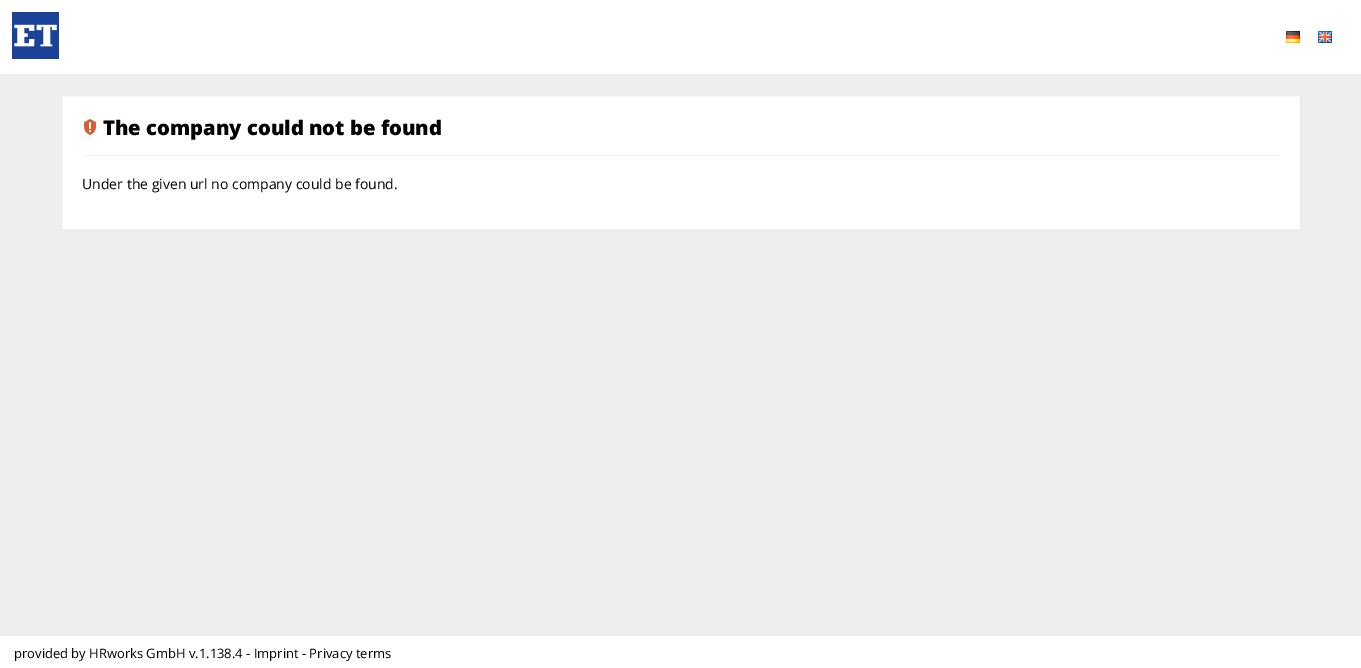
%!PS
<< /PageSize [1361 668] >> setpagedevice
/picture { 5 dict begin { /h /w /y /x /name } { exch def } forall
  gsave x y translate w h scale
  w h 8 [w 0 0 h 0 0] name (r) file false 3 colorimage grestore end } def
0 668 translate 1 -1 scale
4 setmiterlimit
0.933 setgray
0 0 1361 668 rectfill
1 setgray
0 0 1361 74 rectfill
0.914 0.925 0.953 setrgbcolor
0 74 1361 1 rectfill
(img1.rgb) 12 12 47 47 picture
(img2.rgb) 1286 31 14 12 picture
(img3.rgb) 1318 31 14 12 picture
1 setgray
newpath 61.5 95.5 moveto 1300.5 95.5 lineto 1300.5 229.5 lineto 61.5 229.5 lineto closepath gsave fill grestore
0.906 0.925 0.945 setrgbcolor
stroke
0.933 0.945 0.961 setrgbcolor
82 155 1198 1 rectfill
(img4.rgb) 84 119 12 16 picture
/OpenSans-ExtraBold [20.2 0 0 -20.2 0 0] selectfont
0 setgray
103 135 moveto (The company could not be found) show
/OpenSans-Regular [14 0 0 -14 0 0] selectfont
82 189 moveto (Under the given url no company could be found.) show
1 setgray
0 636 1361 32 rectfill
0.914 0.925 0.953 setrgbcolor
0 635 1361 1 rectfill
/OpenSans-Regular [13 0 0 -13 0 0] selectfont
0 setgray
14 658 moveto (provided by HRworks GmbH v.1.138.4 - Imprint - Privacy terms) show
showpage
